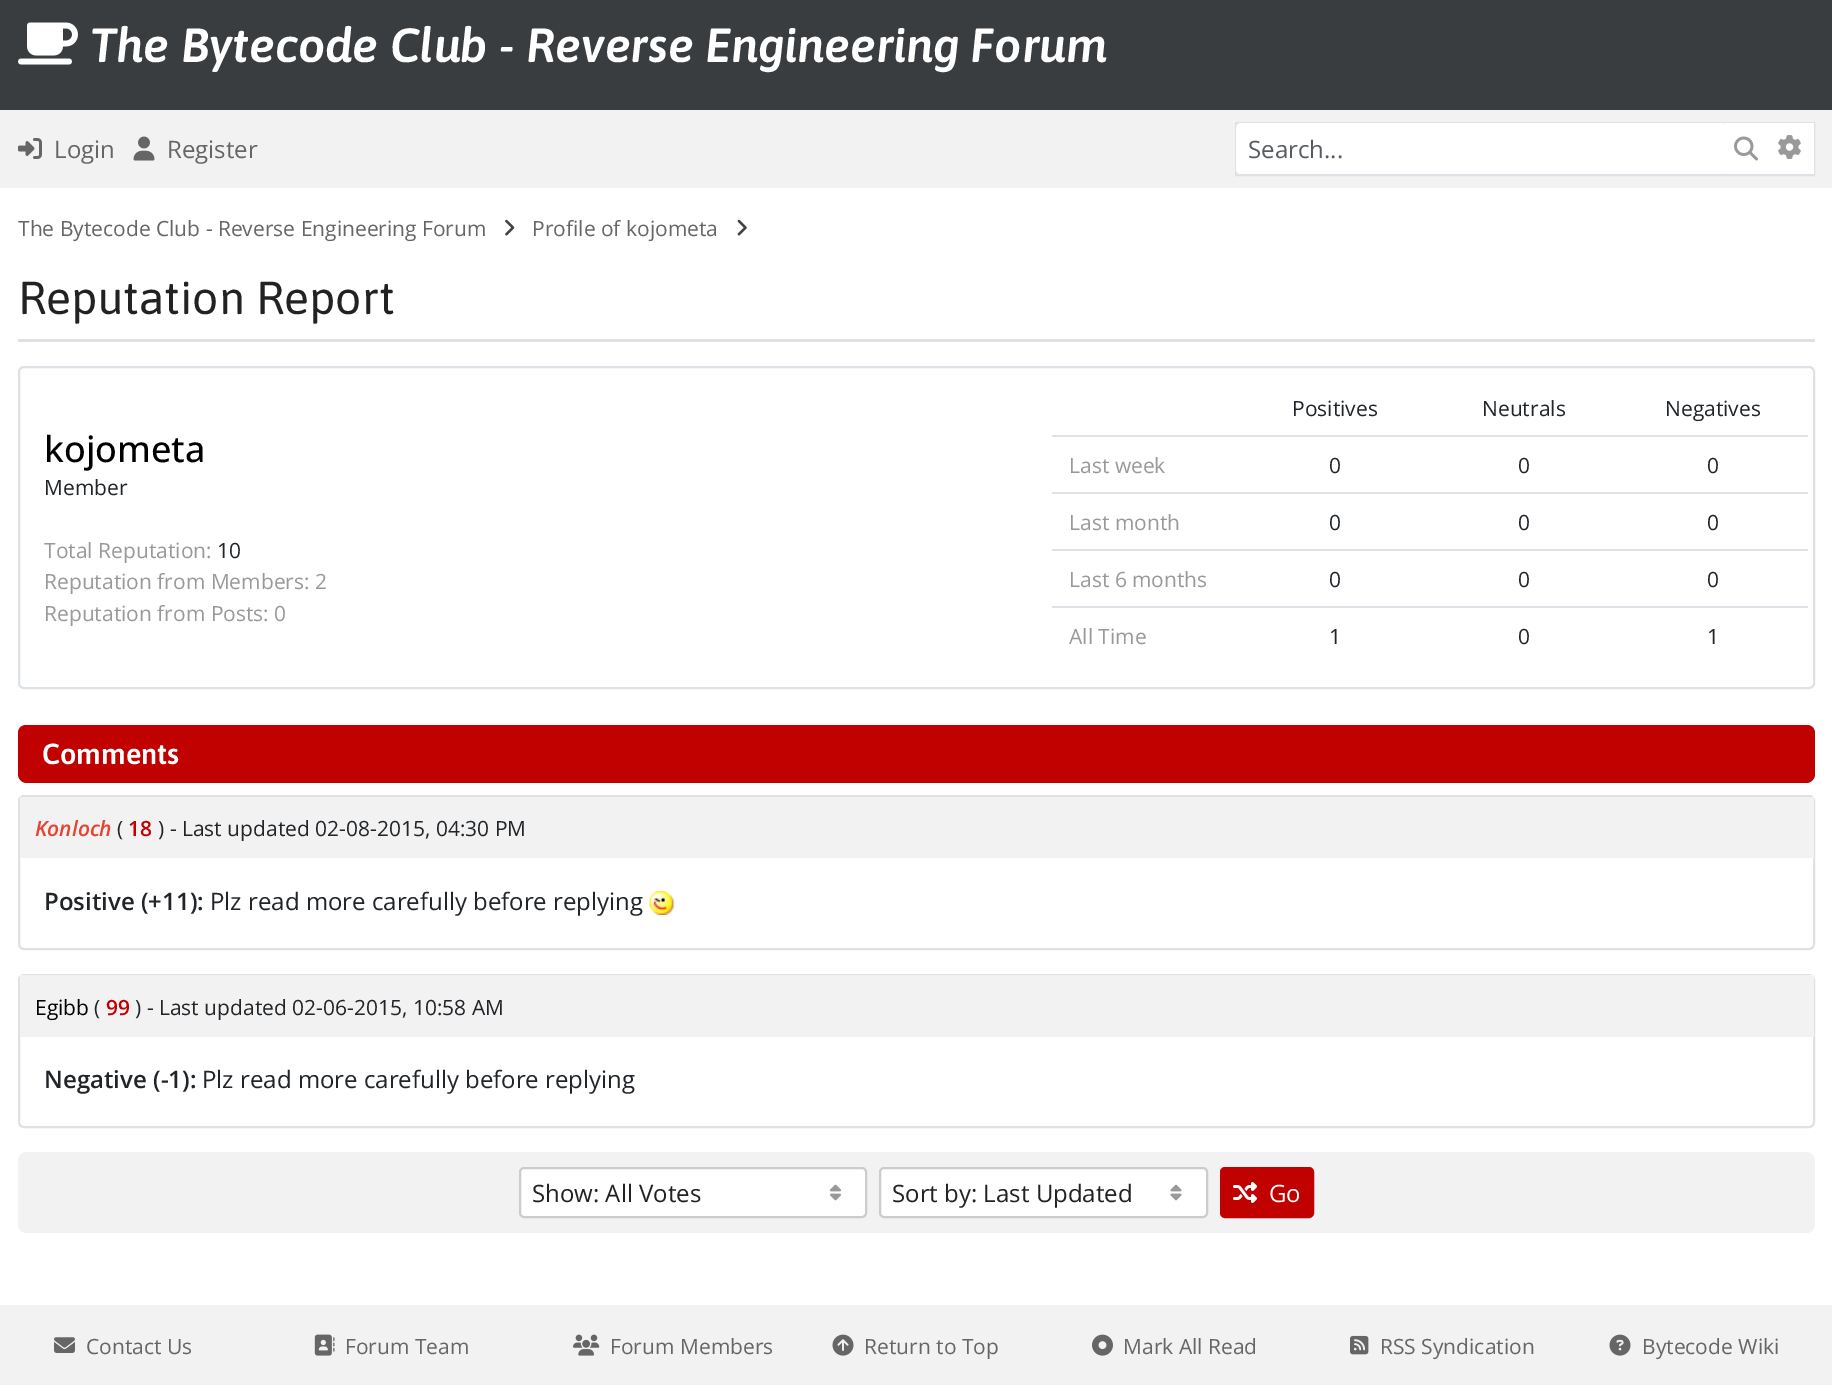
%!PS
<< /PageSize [1832 1399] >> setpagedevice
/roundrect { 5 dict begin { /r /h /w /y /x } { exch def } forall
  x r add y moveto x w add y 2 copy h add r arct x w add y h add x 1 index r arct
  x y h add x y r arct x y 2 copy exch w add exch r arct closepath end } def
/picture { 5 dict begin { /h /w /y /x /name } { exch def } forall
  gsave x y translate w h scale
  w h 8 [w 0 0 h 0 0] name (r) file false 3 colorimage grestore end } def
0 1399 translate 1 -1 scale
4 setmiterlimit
1 setgray
0 0 1832 1399 rectfill
0.224 0.239 0.247 setrgbcolor
0 0 1832 110 rectfill
(img1.rgb) 18 22 60 43 picture
/Asap-SemiBoldItalic [48 0 0 -48 0 0] selectfont
1 setgray
90 62 moveto (The Bytecode Club - Reverse Engineering Forum) show
0.949 setgray
0 110 1832 78 rectfill
(img2.rgb) 18 138 24 21 picture
/OpenSans-Regular [24 0 0 -24 0 0] selectfont
0.4 setgray
54 158 moveto (Login) show
(img3.rgb) 133 136 22 25 picture
167 158 moveto (Register) show
0.871 0.886 0.902 setrgbcolor
2 setlinewidth
1236 123 578 52 rectstroke
1 setgray
1725 123 89 51 rectfill
(img4.rgb) 1734 136 24 25 picture
1236 123 491 51 5 roundrect fill
0.349 0.361 0.373 setrgbcolor
1248 158 moveto (Search...) show
(img5.rgb) 1778 135 23 24 picture
/OpenSans-Regular [21 0 0 -21 0 0] selectfont
0.4 setgray
18 236 moveto (The Bytecode Club - Reverse Engineering Forum) show
(img6.rgb) 505 219 10 17 picture
532 236 moveto (Profile of kojometa) show
(img7.rgb) 737 219 10 17 picture
0.871 0.886 0.902 setrgbcolor
18 339 1797 3 rectfill
/Asap-Regular [46.25 0 0 -46.25 0 0] selectfont
0.133 setgray
18 314 moveto (Reputation Report) show
0.871 0.886 0.902 setrgbcolor
19 367 1795 321 5 roundrect stroke
/OpenSans-Medium [36 0 0 -36 0 0] selectfont
0 setgray
44 462 moveto (kojometa) show
/OpenSans-Regular [21 0 0 -21 0 0] selectfont
0.129 0.145 0.161 setrgbcolor
44 495 moveto (Member) show
0.6 setgray
44 558 moveto (Total Reputation:) show
0.129 0.145 0.161 setrgbcolor
217 558 moveto (10) show
0.6 setgray
44 589 moveto (Reputation from Members: 2) show
44 621 moveto (Reputation from Posts: 0) show
0.871 0.886 0.902 setrgbcolor
1052 435 756 2 rectfill
0.129 0.145 0.161 setrgbcolor
1292 416 moveto (Positives) show
1482 416 moveto (Neutrals) show
1665 416 moveto (Negatives) show
0.871 0.886 0.902 setrgbcolor
1052 492 756 2 rectfill
0.6 setgray
1069 473 moveto (Last week) show
0.129 0.145 0.161 setrgbcolor
1329 473 moveto (0) show
1518 473 moveto (0) show
1707 473 moveto (0) show
0.871 0.886 0.902 setrgbcolor
1052 549 756 2 rectfill
0.6 setgray
1069 530 moveto (Last month) show
0.129 0.145 0.161 setrgbcolor
1329 530 moveto (0) show
1518 530 moveto (0) show
1707 530 moveto (0) show
0.871 0.886 0.902 setrgbcolor
1052 606 756 2 rectfill
0.6 setgray
1069 587 moveto (Last 6 months) show
0.129 0.145 0.161 setrgbcolor
1329 587 moveto (0) show
1518 587 moveto (0) show
1707 587 moveto (0) show
0.6 setgray
1069 644 moveto (All Time) show
0.129 0.145 0.161 setrgbcolor
1329 644 moveto (1) show
1518 644 moveto (0) show
1707 644 moveto (1) show
0.757 0 0 setrgbcolor
newpath 26 725 moveto 1807 725 lineto 1811.5 725 1815 728.5 1815 733 curveto 1815 774 lineto 1815 779 1811 783 1806 783 curveto 27 783 lineto 22 783 18 779 18 774 curveto 18 733 lineto 18 728.5 21.5 725 26 725 curveto closepath fill
/Asap-SemiBold [29 0 0 -29 0 0] selectfont
1 setgray
42 764 moveto (Comments) show
0.871 0.886 0.902 setrgbcolor
19 796 1795 153 5 roundrect stroke
0.949 setgray
20 797 1794 61 rectfill
/OpenSans-SemiBoldItalic [21 0 0 -21 0 0] selectfont
0.906 0.263 0.2 setrgbcolor
35 836 moveto (Konloch) show
/OpenSans-Regular [21 0 0 -21 0 0] selectfont
0.129 0.145 0.161 setrgbcolor
117 836 moveto (\() show
/OpenSans-SemiBold [21 0 0 -21 0 0] selectfont
0.757 0 0 setrgbcolor
128 836 moveto (18) show
/OpenSans-Regular [21 0 0 -21 0 0] selectfont
0.129 0.145 0.161 setrgbcolor
158 836 moveto (\) - Last updated 02-08-2015, 04:30 PM) show
/OpenSans-SemiBold [24 0 0 -24 0 0] selectfont
44 910 moveto (Positive \(+11\):) show
/OpenSans-Regular [24 0 0 -24 0 0] selectfont
210 910 moveto (Plz read more carefully before replying) show
(img8.rgb) 649 891 25 24 picture
0.871 0.886 0.902 setrgbcolor
19 975 1795 152 5 roundrect stroke
0.949 setgray
20 975 1794 62 rectfill
/OpenSans-Regular [21 0 0 -21 0 0] selectfont
0 setgray
35 1015 moveto (Egibb) show
0.129 0.145 0.161 setrgbcolor
94 1015 moveto (\() show
/OpenSans-SemiBold [21 0 0 -21 0 0] selectfont
0.757 0 0 setrgbcolor
106 1015 moveto (99) show
/OpenSans-Regular [21 0 0 -21 0 0] selectfont
0.129 0.145 0.161 setrgbcolor
135 1015 moveto (\) - Last updated 02-06-2015, 10:58 AM) show
/OpenSans-SemiBold [24 0 0 -24 0 0] selectfont
44 1088 moveto (Negative \(-1\):) show
/OpenSans-Regular [24 0 0 -24 0 0] selectfont
202 1088 moveto (Plz read more carefully before replying) show
0.949 setgray
18 1152 1797 81 9 roundrect fill
1 setgray
519 1167 348 51 5 roundrect fill
(img9.rgb) 829 1184 13 17 picture
0.8 setgray
520 1168 346 49 4 roundrect stroke
0.133 setgray
532 1202 moveto (Show: All Votes) show
1 setgray
879 1167 329 51 5 roundrect fill
(img10.rgb) 1170 1184 12 17 picture
0.8 setgray
880 1168 327 49 4 roundrect stroke
0.133 setgray
892 1202 moveto (Sort by: Last Updated) show
0.757 0 0 setrgbcolor
1221 1168 92 49 4 roundrect gsave fill grestore
stroke
(img11.rgb) 1233 1182 24 21 picture
1 setgray
1269 1202 moveto (Go) show
0.949 setgray
0 1305 1832 80 rectfill
(img12.rgb) 54 1337 21 16 picture
/OpenSans-Regular [21 0 0 -21 0 0] selectfont
0.4 setgray
86 1354 moveto (Contact Us) show
(img13.rgb) 314 1334 21 22 picture
345 1354 moveto (Forum Team) show
(img14.rgb) 573 1334 27 22 picture
610 1354 moveto (Forum Members) show
(img15.rgb) 832 1334 22 22 picture
864 1354 moveto (Return to Top) show
(img16.rgb) 1092 1334 21 22 picture
1123 1354 moveto (Mark All Read) show
(img17.rgb) 1350 1335 19 20 picture
1380 1354 moveto (RSS Syndication) show
(img18.rgb) 1609 1334 22 22 picture
1642 1354 moveto (Bytecode Wiki) show
showpage
